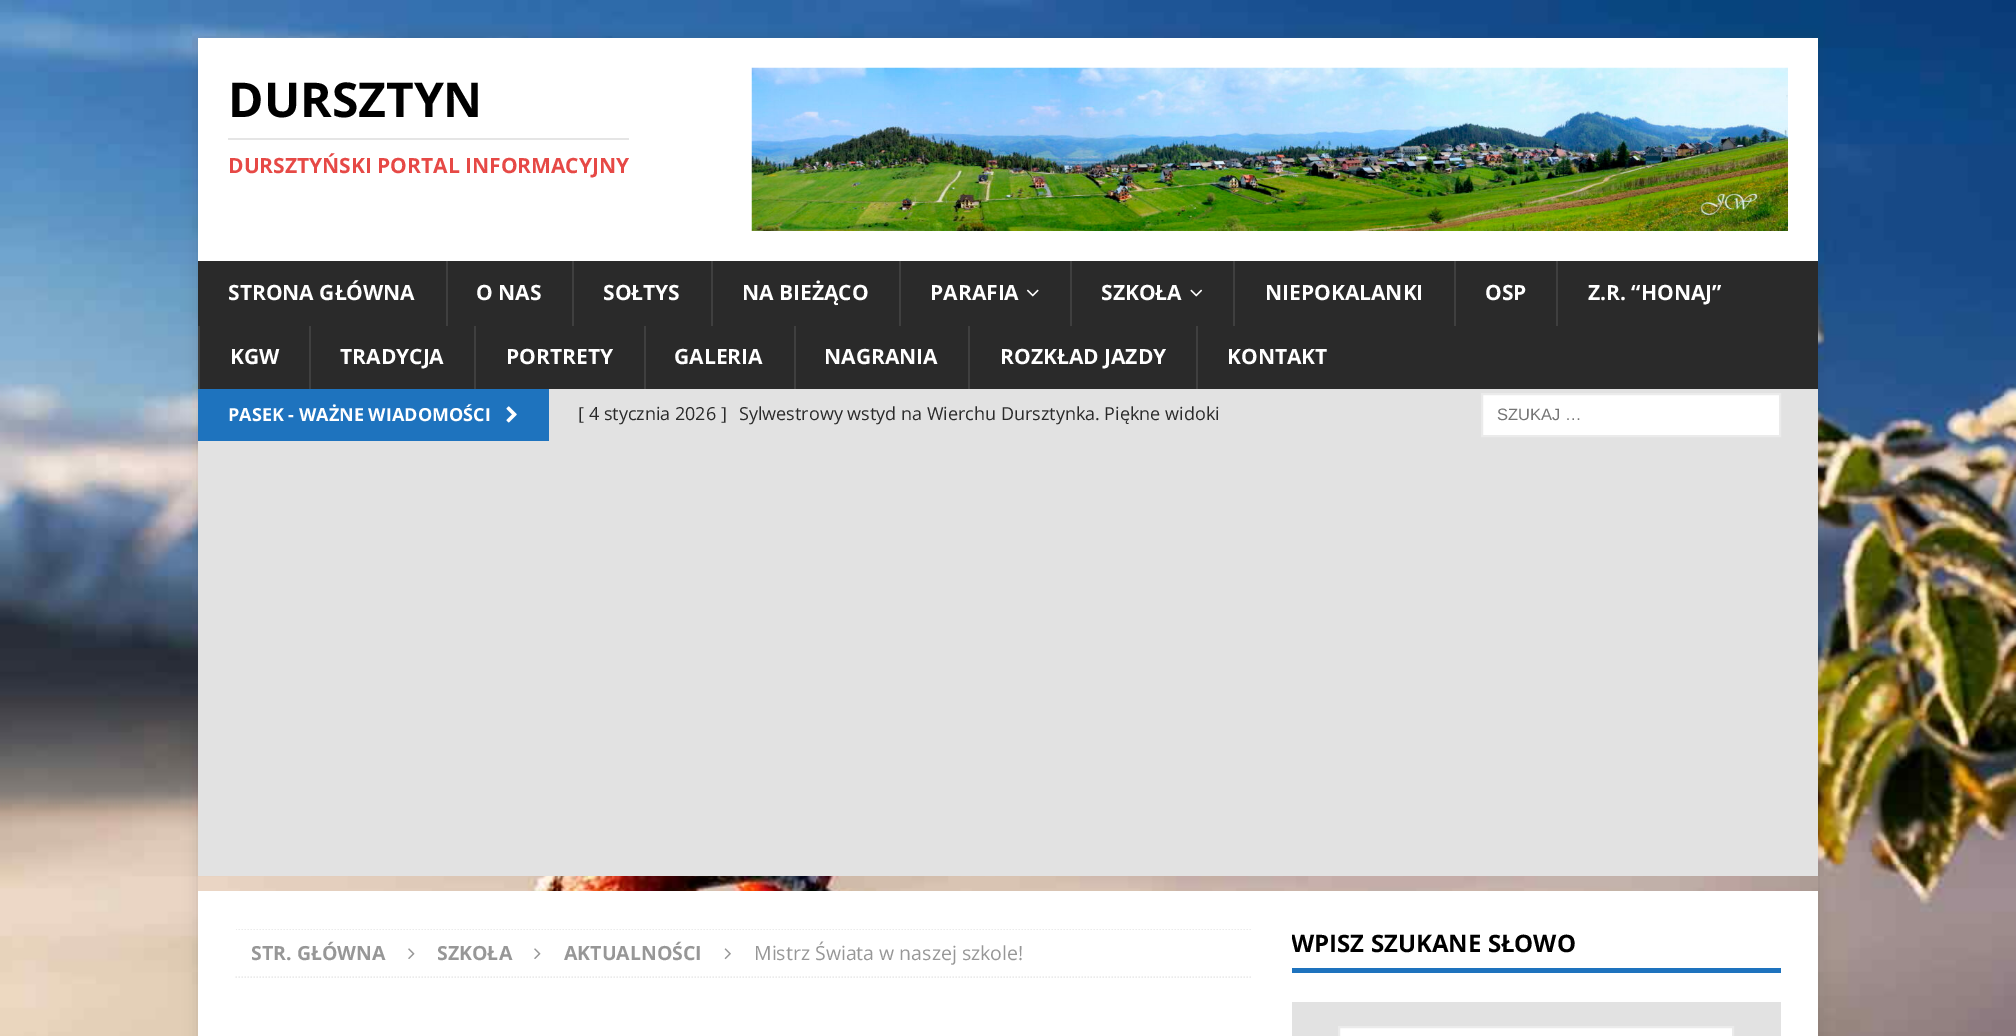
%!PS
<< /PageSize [2016 1036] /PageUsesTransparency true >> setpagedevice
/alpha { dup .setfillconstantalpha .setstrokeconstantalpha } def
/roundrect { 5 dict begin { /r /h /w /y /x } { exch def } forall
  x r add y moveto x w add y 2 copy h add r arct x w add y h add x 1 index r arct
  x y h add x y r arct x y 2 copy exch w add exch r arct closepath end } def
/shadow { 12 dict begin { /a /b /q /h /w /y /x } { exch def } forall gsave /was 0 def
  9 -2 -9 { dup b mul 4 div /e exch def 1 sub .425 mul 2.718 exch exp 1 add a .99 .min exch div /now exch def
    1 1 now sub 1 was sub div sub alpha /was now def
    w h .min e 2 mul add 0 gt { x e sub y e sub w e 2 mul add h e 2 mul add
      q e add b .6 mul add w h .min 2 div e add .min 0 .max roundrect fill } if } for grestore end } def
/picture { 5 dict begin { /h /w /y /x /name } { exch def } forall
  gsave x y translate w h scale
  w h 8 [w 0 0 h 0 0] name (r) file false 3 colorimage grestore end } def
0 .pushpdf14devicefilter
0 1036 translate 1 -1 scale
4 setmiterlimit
1 setgray
0 0 2016 1036 rectfill
(img1.rgb) 0 0 2016 1036 picture
gsave
newpath 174 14 moveto 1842 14 lineto 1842 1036 lineto 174 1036 lineto closepath 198 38 moveto 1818 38 lineto 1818 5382 lineto 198 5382 lineto closepath eoclip newpath
0.196 setgray
198 38 1620 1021 0 7.5 0.17 shadow
grestore
198 38 1620 223 rectfill
/OpenSans-Bold [48 0 0 -48 0 0] selectfont
0 setgray
228 117 moveto (DURSZTYN) show
0.898 setgray
228 138 401 2 rectfill
/OpenSans-Bold [21 0 0 -21 0 0] selectfont
0.902 0.286 0.275 setrgbcolor
228 173 moveto (DURSZTYŃSKI PORTAL INFORMACYJNY) show
(img2.rgb) 751 67 1037 164 picture
0.165 setgray
198 261 1620 128 rectfill
1 setgray
228 300 moveto (STRONA GŁÓWNA) show
0.247 setgray
446 261 2 65 rectfill
1 setgray
476 300 moveto (O NAS) show
0.247 setgray
572 261 2 65 rectfill
1 setgray
603 300 moveto (SOŁTYS) show
0.247 setgray
711 261 2 65 rectfill
1 setgray
742 300 moveto (NA BIEŻĄCO) show
0.247 setgray
899 261 2 65 rectfill
1 setgray
930 300 moveto (PARAFIA) show
(img3.rgb) 1026 289 13 8 picture
0.247 setgray
1070 261 2 65 rectfill
1 setgray
1101 300 moveto (SZKOŁA) show
(img4.rgb) 1190 289 13 8 picture
0.247 setgray
1233 261 2 65 rectfill
1 setgray
1265 300 moveto (NIEPOKALANKI) show
0.247 setgray
1454 261 2 65 rectfill
1 setgray
1485 300 moveto (OSP) show
0.247 setgray
1556 261 2 65 rectfill
1 setgray
1588 300 moveto (Z.R. “HONAJ”) show
0.247 setgray
198 326 2 63 rectfill
1 setgray
230 364 moveto (KGW) show
0.247 setgray
309 326 2 63 rectfill
1 setgray
340 364 moveto (TRADYCJA) show
0.247 setgray
474 326 2 63 rectfill
1 setgray
506 364 moveto (PORTRETY) show
0.247 setgray
644 326 2 63 rectfill
1 setgray
674 364 moveto (GALERIA) show
0.247 setgray
794 326 2 63 rectfill
1 setgray
824 364 moveto (NAGRANIA) show
0.247 setgray
968 326 2 63 rectfill
1 setgray
1000 364 moveto (ROZKŁAD JAZDY) show
0.247 setgray
1196 326 2 63 rectfill
1 setgray
1227 364 moveto (KONTAKT) show
0.886 setgray
198 389 1620 487 rectfill
0.118 0.451 0.745 setrgbcolor
198 389 351 52 rectfill
/OpenSans-Bold [18 0 0 -18 0 0] selectfont
1 setgray
228 421 moveto (PASEK - WAŻNE WIADOMOŚCI) show
(img5.rgb) 506 406 11 17 picture
/OpenSans-Regular [18 0 0 -18 0 0] selectfont
0.165 setgray
578 420 moveto ([ 4 stycznia 2026 ]) show
739 420 moveto (Sylwestrowy wstyd na Wierchu Dursztynka. Piękne widoki) show
1 setgray
newpath 1482 394 moveto 1780 394 lineto 1780 436 lineto 1482 436 lineto closepath gsave fill grestore
0.922 setgray
2 setlinewidth
stroke
/LiberationSans-Regular [16.5 0 0 -16.5 0 0] selectfont
0.459 setgray
1497 420 moveto (SZUKAJ …) show
1 setgray
198 891 1620 145 rectfill
gsave
236 929 1017 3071 rectclip
0.922 setgray
1.5 setlinewidth
[1.5 1.5] 0 setdash
newpath 235.5 929 moveto 1252.5 929 lineto stroke
grestore
0.922 setgray
1.5 setlinewidth
[1.5 1.5] 0 setdash
newpath 235.5 977 moveto 1252.5 977 lineto stroke
/OpenSans-Bold [19.5 0 0 -19.5 0 0] selectfont
0.592 setgray
251 960 moveto (STR. GŁÓWNA) show
(img6.rgb) 408 948 7 11 picture
437 960 moveto (SZKOŁA) show
(img6.rgb) 534 948 7 11 picture
564 960 moveto (AKTUALNOŚCI) show
(img7.rgb) 724 948 7 12 picture
/OpenSans-Regular [19.5 0 0 -19.5 0 0] selectfont
754 960 moveto (Mistrz Świata w naszej szkole!) show
0.118 0.451 0.745 setrgbcolor
1292 968 489 5 rectfill
gsave
1292 929 489 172 rectclip
/OpenSans-Bold [24 0 0 -24 0 0] selectfont
0 setgray
1291 952 moveto (WPISZ SZUKANE SŁOWO) show
grestore
0.886 setgray
1292 1002 489 34 rectfill
1 setgray
newpath 1339 1027 moveto 1733 1027 lineto 1733 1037 lineto 1339 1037 lineto closepath gsave fill grestore
0.922 setgray
2 setlinewidth
[] 0 setdash
stroke
.poppdf14devicefilter showpage
